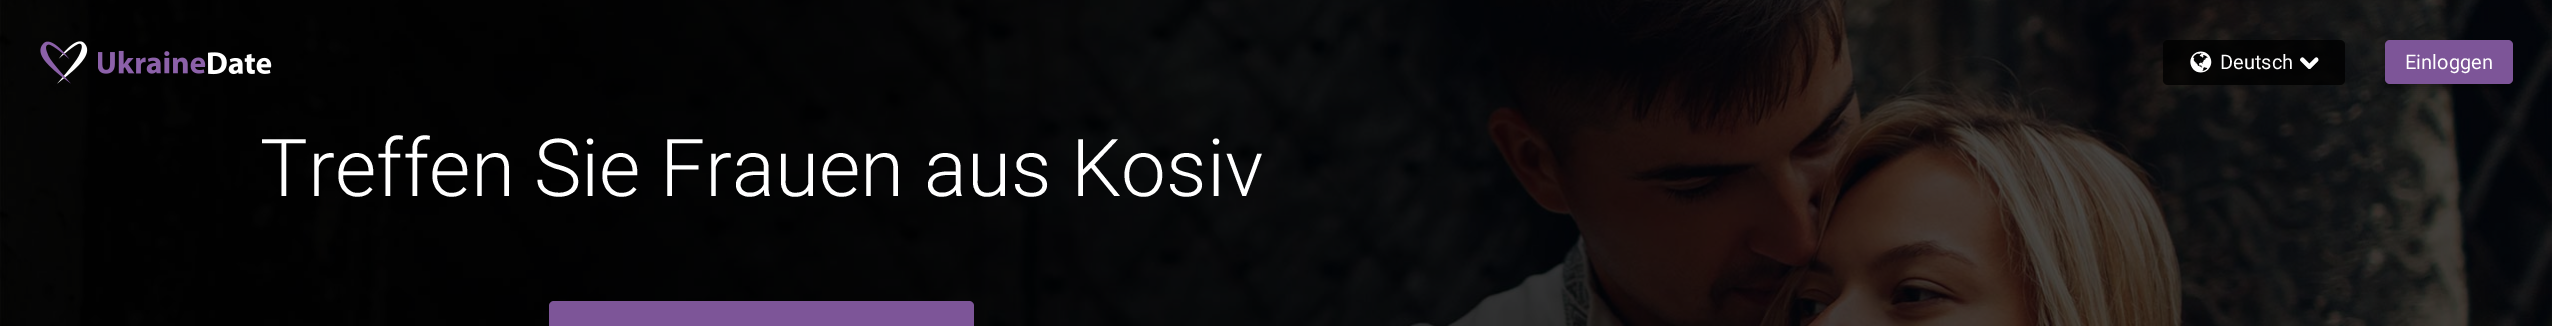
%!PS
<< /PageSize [2552 326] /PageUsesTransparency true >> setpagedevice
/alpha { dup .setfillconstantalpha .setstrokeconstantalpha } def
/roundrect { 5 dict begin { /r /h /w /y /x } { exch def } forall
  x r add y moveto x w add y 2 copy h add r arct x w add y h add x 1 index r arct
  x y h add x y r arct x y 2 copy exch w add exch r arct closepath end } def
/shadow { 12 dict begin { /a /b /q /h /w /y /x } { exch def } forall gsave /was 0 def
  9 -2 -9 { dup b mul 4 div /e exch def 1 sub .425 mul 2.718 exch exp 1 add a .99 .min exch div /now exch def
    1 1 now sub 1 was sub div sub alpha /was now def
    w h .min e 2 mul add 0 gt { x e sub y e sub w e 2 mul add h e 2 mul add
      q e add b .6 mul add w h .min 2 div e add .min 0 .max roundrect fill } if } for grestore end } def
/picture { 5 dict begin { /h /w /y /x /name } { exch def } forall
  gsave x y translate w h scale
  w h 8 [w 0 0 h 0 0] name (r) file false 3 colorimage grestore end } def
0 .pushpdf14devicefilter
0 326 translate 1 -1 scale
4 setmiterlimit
1 setgray
0 0 2552 326 rectfill
(img5.rgb) 0 0 2552 326 picture
(img1.rgb) 40 41 48 43 picture
(img2.rgb) 98 50 174 25 picture
0.8 alpha
0 setgray
2163 40 182 45 5 roundrect fill
1 alpha
(img3.rgb) 2190 51 22 22 picture
/Roboto-Regular [20 0 0 -20 0 0] selectfont
1 setgray
2220 69 moveto (Deutsch) show
(img4.rgb) 2300 57 19 12 picture
0 setgray
2385 44 128 44 5 4 0.4 shadow
0.49 0.333 0.596 setrgbcolor
2385 40 128 44 5 roundrect fill
1 setgray
2405 69 moveto (Einloggen) show
/Roboto-Light [80 0 0 -80 0 0] selectfont
260 196 moveto (Treffen Sie Frauen aus Kosiv) show
0.49 0.333 0.596 setrgbcolor
549 301 425 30 5 roundrect fill
.poppdf14devicefilter showpage
